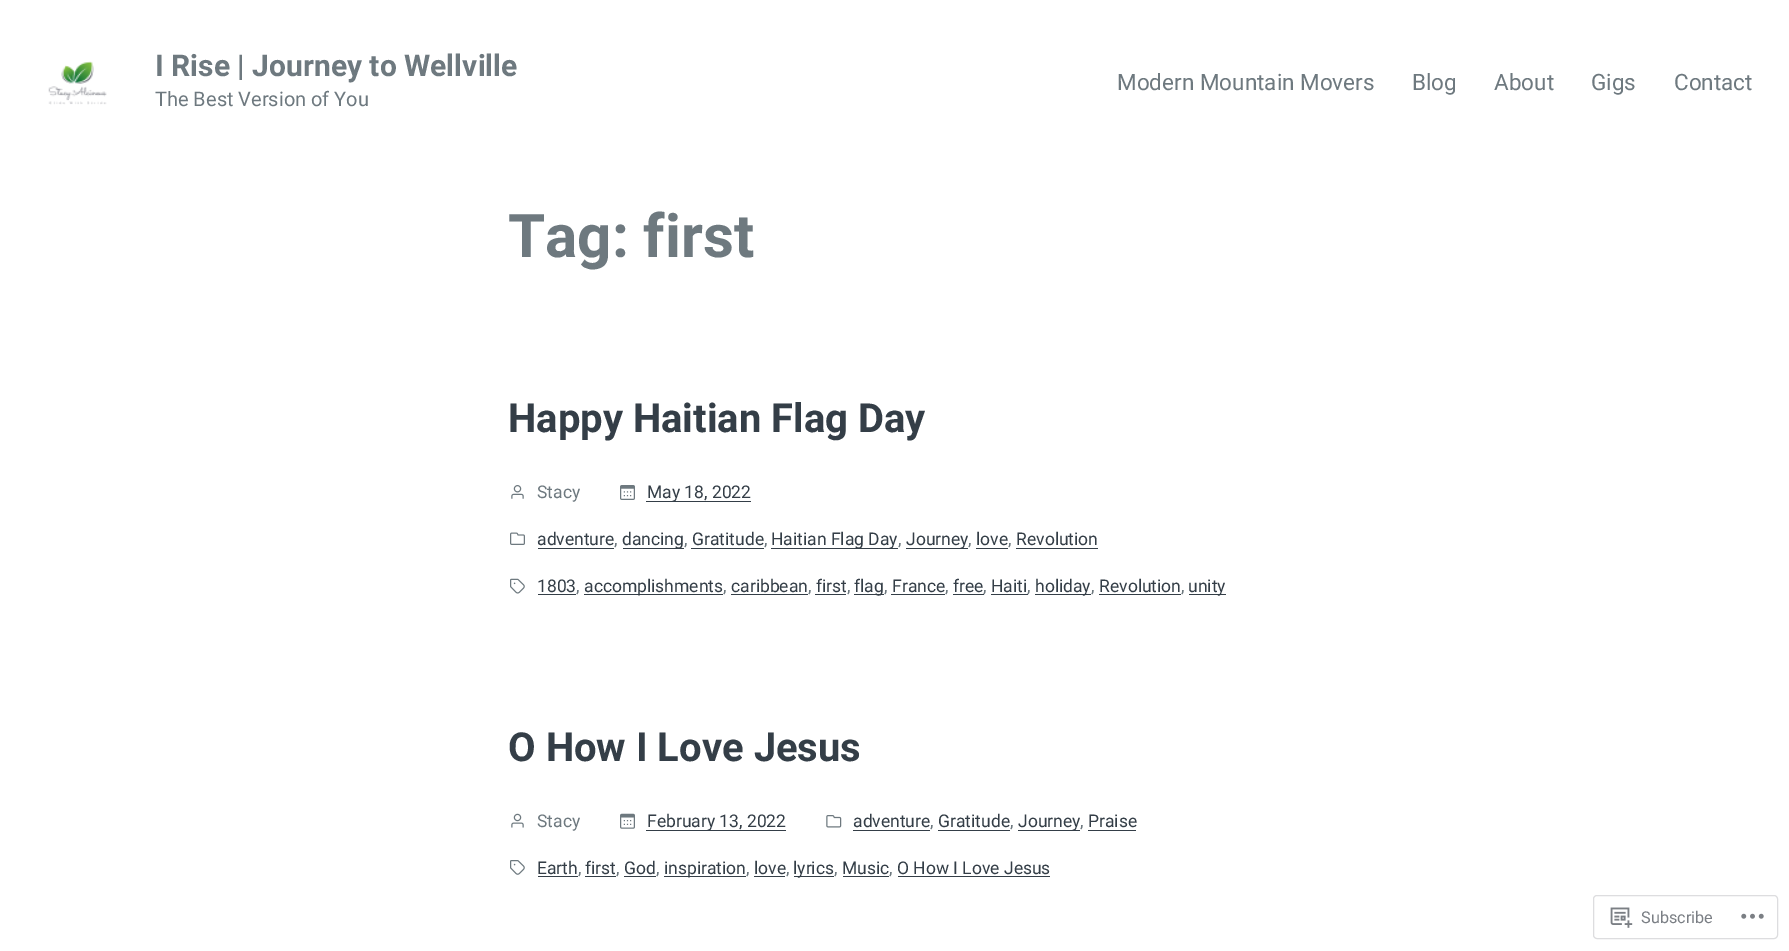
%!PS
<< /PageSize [1789 951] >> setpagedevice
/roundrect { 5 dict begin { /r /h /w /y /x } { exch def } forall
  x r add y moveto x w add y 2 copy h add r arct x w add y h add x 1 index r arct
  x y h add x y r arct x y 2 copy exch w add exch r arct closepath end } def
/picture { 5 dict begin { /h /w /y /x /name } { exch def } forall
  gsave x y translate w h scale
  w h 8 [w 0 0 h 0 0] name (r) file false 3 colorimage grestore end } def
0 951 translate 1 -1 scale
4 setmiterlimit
1 setgray
0 0 1789 951 rectfill
(img1.rgb) 48 61 59 44 picture
/Roboto-Bold [30 0 0 -30 0 0] selectfont
0.431 0.475 0.498 setrgbcolor
155 76 moveto (I Rise | Journey to Wellville) show
/Roboto-Regular [20 0 0 -20 0 0] selectfont
155 106 moveto (The Best Version of You) show
/Roboto-Regular [22.5 0 0 -22.5 0 0] selectfont
1117 90 moveto (Modern Mountain Movers) show
1412 90 moveto (Blog) show
1494 90 moveto (About) show
1591 90 moveto (Gigs) show
1674 90 moveto (Contact) show
/Roboto-Bold [60 0 0 -60 0 0] selectfont
508 257 moveto (Tag: first) show
/Roboto-Bold [40 0 0 -40 0 0] selectfont
0.204 0.243 0.278 setrgbcolor
508 432 moveto (Happy Haitian Flag Day) show
(img2.rgb) 511 485 13 14 picture
/Roboto-Regular [17.5 0 0 -17.5 0 0] selectfont
0.431 0.475 0.498 setrgbcolor
537 498 moveto (Stacy) show
(img3.rgb) 620 485 15 15 picture
0.204 0.243 0.278 setrgbcolor
646 501 105 1 rectfill
647 498 moveto (May 18, 2022) show
(img4.rgb) 510 532 15 13 picture
537 545 moveto (adventure) show
538 548 76 1 rectfill
0.431 0.475 0.498 setrgbcolor
614 545 moveto (,) show
0.204 0.243 0.278 setrgbcolor
623 548 61 1 rectfill
622 545 moveto (dancing) show
0.431 0.475 0.498 setrgbcolor
684 545 moveto (,) show
0.204 0.243 0.278 setrgbcolor
692 545 moveto (Gratitude) show
691 548 73 1 rectfill
0.431 0.475 0.498 setrgbcolor
764 545 moveto (,) show
0.204 0.243 0.278 setrgbcolor
771 548 127 1 rectfill
771 545 moveto (Haitian Flag Day) show
0.431 0.475 0.498 setrgbcolor
898 545 moveto (,) show
0.204 0.243 0.278 setrgbcolor
906 548 62 1 rectfill
906 545 moveto (Journey) show
0.431 0.475 0.498 setrgbcolor
968 545 moveto (,) show
0.204 0.243 0.278 setrgbcolor
976 545 moveto (love) show
976 548 32 1 rectfill
0.431 0.475 0.498 setrgbcolor
1008 545 moveto (,) show
0.204 0.243 0.278 setrgbcolor
1016 545 moveto (Revolution) show
1016 548 82 1 rectfill
(img5.rgb) 510 578 15 16 picture
537 592 moveto (1803) show
538 594 38 1 rectfill
0.431 0.475 0.498 setrgbcolor
576 592 moveto (,) show
0.204 0.243 0.278 setrgbcolor
584 594 139 1 rectfill
584 592 moveto (accomplishments) show
0.431 0.475 0.498 setrgbcolor
723 592 moveto (,) show
0.204 0.243 0.278 setrgbcolor
731 592 moveto (caribbean) show
731 594 77 1 rectfill
0.431 0.475 0.498 setrgbcolor
808 592 moveto (,) show
0.204 0.243 0.278 setrgbcolor
816 592 moveto (first) show
815 594 31 1 rectfill
0.431 0.475 0.498 setrgbcolor
847 592 moveto (,) show
0.204 0.243 0.278 setrgbcolor
854 594 30 1 rectfill
854 592 moveto (flag) show
0.431 0.475 0.498 setrgbcolor
884 592 moveto (,) show
0.204 0.243 0.278 setrgbcolor
892 592 moveto (France) show
891 594 54 1 rectfill
0.431 0.475 0.498 setrgbcolor
945 592 moveto (,) show
0.204 0.243 0.278 setrgbcolor
953 592 moveto (free) show
953 594 31 1 rectfill
0.431 0.475 0.498 setrgbcolor
983 592 moveto (,) show
0.204 0.243 0.278 setrgbcolor
991 592 moveto (Haiti) show
991 594 37 1 rectfill
0.431 0.475 0.498 setrgbcolor
1027 592 moveto (,) show
0.204 0.243 0.278 setrgbcolor
1035 594 56 1 rectfill
1035 592 moveto (holiday) show
0.431 0.475 0.498 setrgbcolor
1091 592 moveto (,) show
0.204 0.243 0.278 setrgbcolor
1099 592 moveto (Revolution) show
1099 594 82 1 rectfill
0.431 0.475 0.498 setrgbcolor
1181 592 moveto (,) show
0.204 0.243 0.278 setrgbcolor
1189 594 37 1 rectfill
1188 592 moveto (unity) show
/Roboto-Bold [40 0 0 -40 0 0] selectfont
508 761 moveto (O How I Love Jesus) show
(img6.rgb) 511 813 13 15 picture
/Roboto-Regular [17.5 0 0 -17.5 0 0] selectfont
0.431 0.475 0.498 setrgbcolor
537 827 moveto (Stacy) show
(img7.rgb) 620 813 15 16 picture
0.204 0.243 0.278 setrgbcolor
646 830 140 1 rectfill
647 827 moveto (February 13, 2022) show
(img8.rgb) 826 815 16 13 picture
853 827 moveto (adventure) show
853 830 77 1 rectfill
0.431 0.475 0.498 setrgbcolor
930 827 moveto (,) show
0.204 0.243 0.278 setrgbcolor
938 827 moveto (Gratitude) show
938 830 72 1 rectfill
0.431 0.475 0.498 setrgbcolor
1010 827 moveto (,) show
0.204 0.243 0.278 setrgbcolor
1018 830 62 1 rectfill
1018 827 moveto (Journey) show
0.431 0.475 0.498 setrgbcolor
1080 827 moveto (,) show
0.204 0.243 0.278 setrgbcolor
1088 827 moveto (Praise) show
1088 830 48 1 rectfill
(img9.rgb) 510 860 15 15 picture
537 874 moveto (Earth) show
538 876 40 1 rectfill
0.431 0.475 0.498 setrgbcolor
578 874 moveto (,) show
0.204 0.243 0.278 setrgbcolor
585 874 moveto (first) show
585 876 31 1 rectfill
0.431 0.475 0.498 setrgbcolor
616 874 moveto (,) show
0.204 0.243 0.278 setrgbcolor
624 874 moveto (God) show
624 876 32 1 rectfill
0.431 0.475 0.498 setrgbcolor
656 874 moveto (,) show
0.204 0.243 0.278 setrgbcolor
664 876 82 1 rectfill
664 874 moveto (inspiration) show
0.431 0.475 0.498 setrgbcolor
746 874 moveto (,) show
0.204 0.243 0.278 setrgbcolor
754 874 moveto (love) show
754 876 31 1 rectfill
0.431 0.475 0.498 setrgbcolor
786 874 moveto (,) show
0.204 0.243 0.278 setrgbcolor
794 876 40 1 rectfill
793 874 moveto (lyrics) show
0.431 0.475 0.498 setrgbcolor
834 874 moveto (,) show
0.204 0.243 0.278 setrgbcolor
842 874 moveto (Music) show
843 876 46 1 rectfill
0.431 0.475 0.498 setrgbcolor
889 874 moveto (,) show
0.204 0.243 0.278 setrgbcolor
897 874 moveto (O How I Love Jesus) show
898 876 152 1 rectfill
0.867 0.867 0.875 setrgbcolor
1593.5 895.5 184 43 3.5 roundrect stroke
(img10.rgb) 1610 907 23 21 picture
/Roboto-Regular [16.25 0 0 -16.25 0 0] selectfont
0.482 0.498 0.522 setrgbcolor
1641 923 moveto (Subscribe) show
(img11.rgb) 1741 913 23 6 picture
showpage
